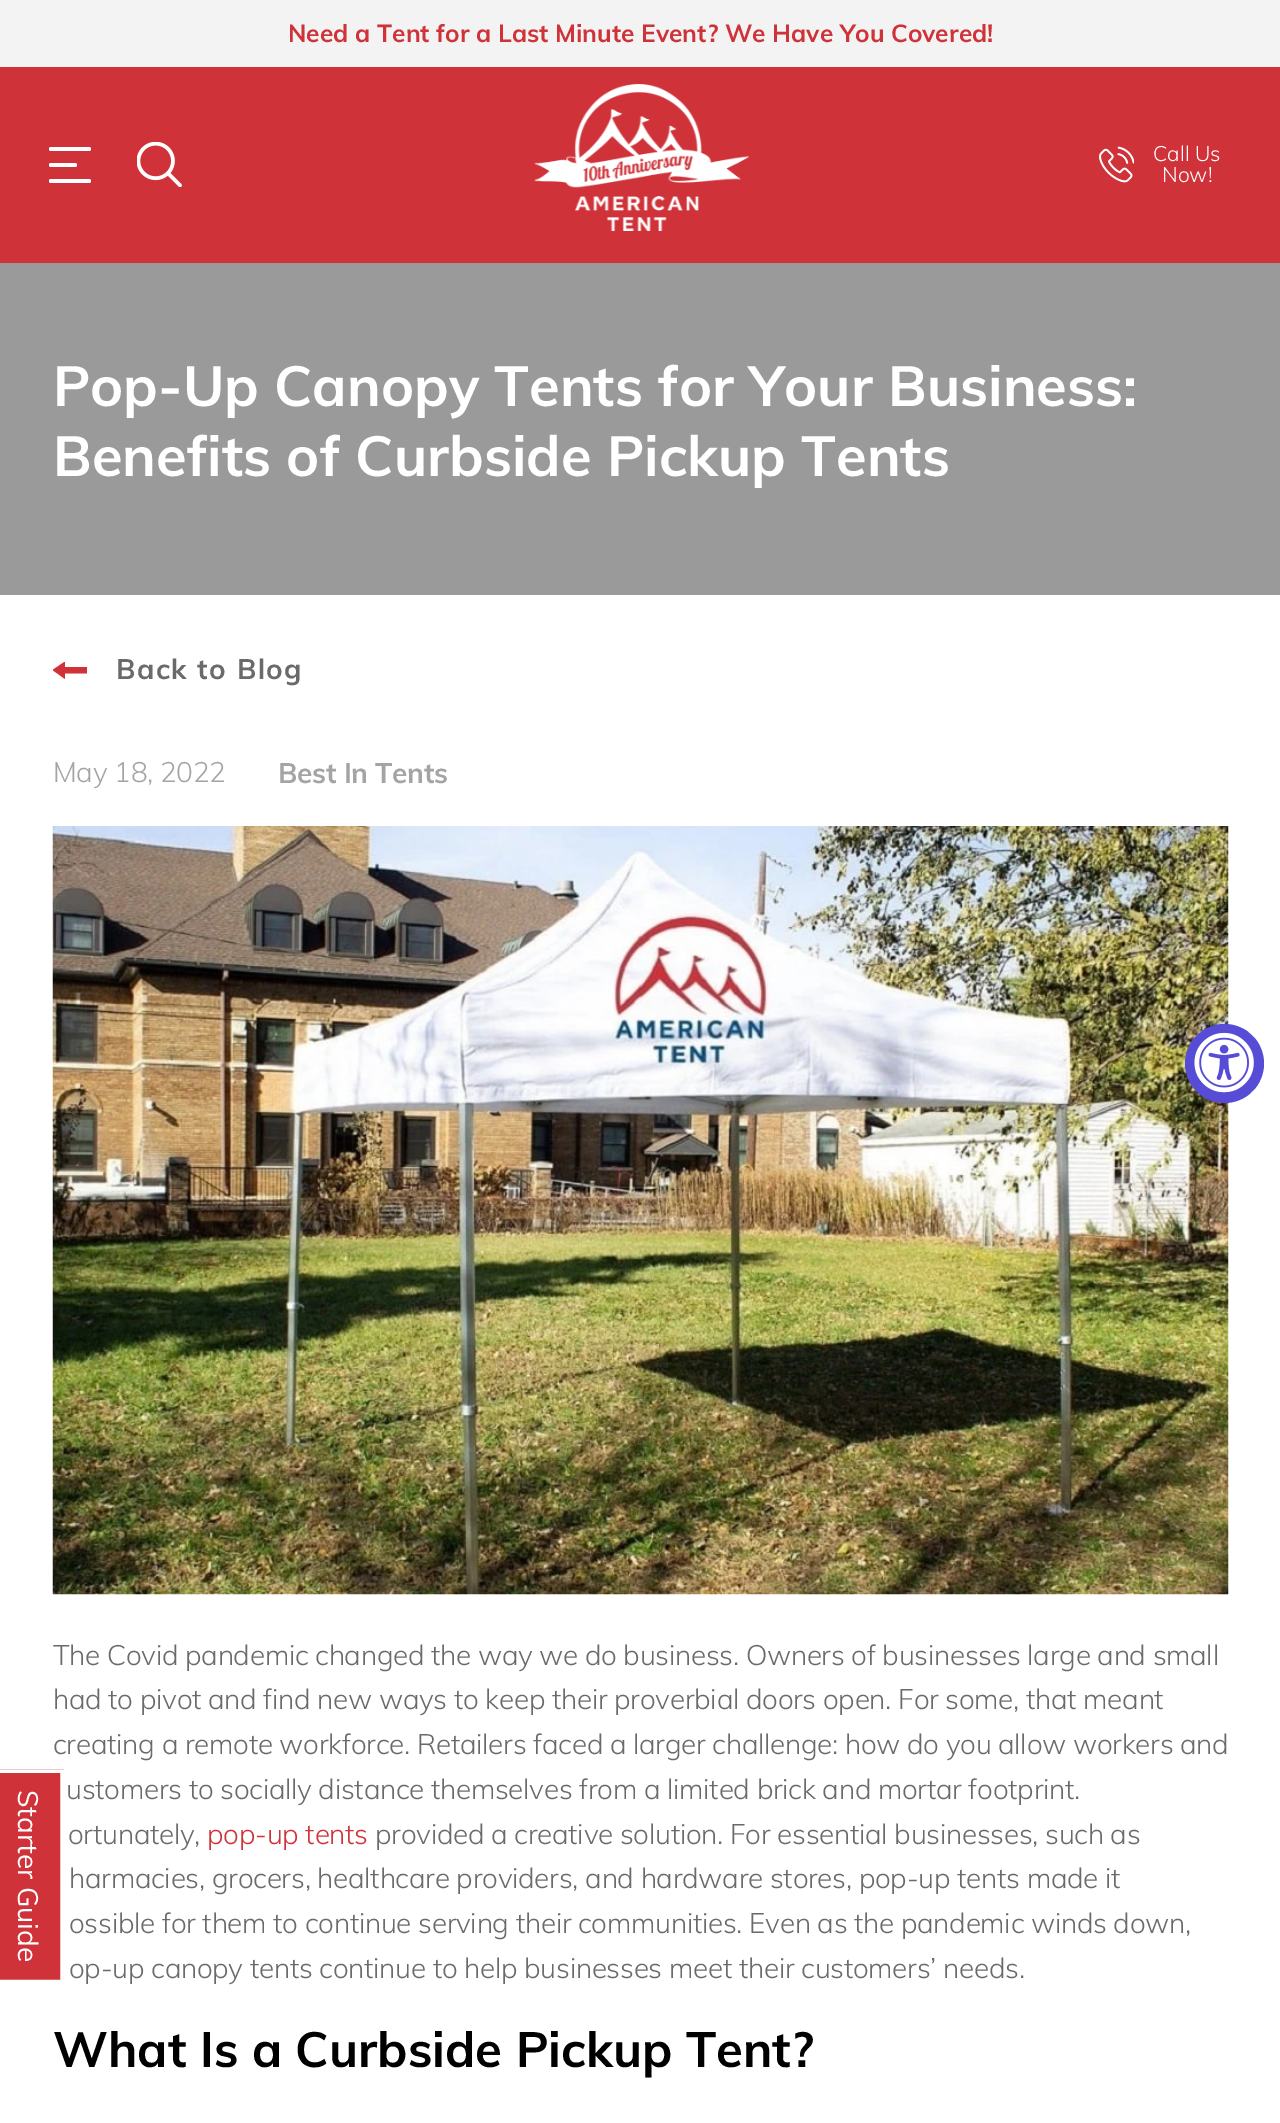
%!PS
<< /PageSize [1280 2123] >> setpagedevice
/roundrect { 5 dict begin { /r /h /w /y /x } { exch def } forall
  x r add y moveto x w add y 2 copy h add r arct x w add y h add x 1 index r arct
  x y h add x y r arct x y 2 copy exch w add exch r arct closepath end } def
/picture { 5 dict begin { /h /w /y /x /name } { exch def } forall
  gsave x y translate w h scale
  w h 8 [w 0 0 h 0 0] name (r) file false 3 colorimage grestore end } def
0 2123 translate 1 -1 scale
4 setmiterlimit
0.953 setgray
0 0 1280 2123 rectfill
1 setgray
0 595 1280 1528 rectfill
/Muli-Bold [24.5 0 0 -24.5 0 0] selectfont
0.812 0.2 0.224 setrgbcolor
288 42 moveto (Need a Tent for a Last Minute Event? We Have You Covered!) show
0 67 1280 196 rectfill
1 setgray
49 147 42 4 2 roundrect fill
49 163 28 4 2 roundrect fill
49 179 42 4 2 roundrect fill
(img1.rgb) 137 142 45 45 picture
(img2.rgb) 534 84 215 147 picture
(img3.rgb) 1099 146 35 37 picture
/Muli-Light [21 0 0 -21 0 0] selectfont
1153 161 moveto (Call Us) show
1162 182 moveto (Now!) show
0.604 setgray
0 263 1280 332 rectfill
/Muli-Bold [56 0 0 -56 0 0] selectfont
1 setgray
53 406 moveto (Pop-Up Canopy Tents for Your Business:) show
53 476 moveto (Benefits of Curbside Pickup Tents) show
gsave
53 662 35 17 rectclip
0.812 0.2 0.224 setrgbcolor
newpath 52.5 670 moveto 65 679 lineto 65 673.5 lineto 87 673.5 lineto 87 667 lineto 65 667 lineto 65 661.5 lineto closepath fill
grestore
/Muli-Bold [28 0 0 -28 0 0] selectfont
0.416 setgray
116 679 moveto 1.5 0 (Back to Blog) ashow
/Muli-Light [28 0 0 -28 0 0] selectfont
0.643 setgray
53 782 moveto -0.28 0 (May 18, 2022) ashow
/Muli-Bold [28 0 0 -28 0 0] selectfont
278 783 moveto -0.28 0 (Best In Tents) ashow
(img4.rgb) 52 826 1177 769 picture
/Muli-Light [28 0 0 -28 0 0] selectfont
0.416 setgray
53 1665 moveto -0.28 0 (The Covid pandemic changed the way we do business. Owners of businesses large and small) ashow
53 1709 moveto -0.28 0 (had to pivot and find new ways to keep their proverbial doors open. For some, that meant) ashow
53 1754 moveto -0.28 0 (creating a remote workforce. Retailers faced a larger challenge: how do you allow workers and) ashow
66 1799 moveto -0.28 0 (ustomers to socially distance themselves from a limited brick and mortar footprint.) ashow
68 1844 moveto -0.28 0 (ortunately,) ashow
0.812 0.2 0.224 setrgbcolor
207 1844 moveto -0.28 0 (pop-up tents) ashow
0.416 setgray
375 1844 moveto -0.28 0 (provided a creative solution. For essential businesses, such as) ashow
69 1888 moveto -0.28 0 (harmacies, grocers, healthcare providers, and hardware stores, pop-up tents made it) ashow
69 1933 moveto -0.28 0 (ossible for them to continue serving their communities. Even as the pandemic winds down,) ashow
69 1978 moveto -0.28 0 (op-up canopy tents continue to help businesses meet their customers’ needs.) ashow
/Muli-Bold [49 0 0 -49 0 0] selectfont
0 setgray
53 2067 moveto (What Is a Curbside Pickup Tent?) show
0.341 0.298 0.835 setrgbcolor
newpath 1224.5 1063.5 39.5 0 360 arc closepath fill
(img5.rgb) 1194 1032 60 61 picture
0.812 0.2 0.224 setrgbcolor
0 1769 64 214 rectfill
1 setgray
3.5 setlinewidth
newpath 62 1771 moveto 62 1981.5 lineto -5.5 1981.5 lineto -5.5 1771 lineto closepath stroke
/Muli-Regular [28 0 0 -28 0 0] selectfont
gsave 18 1790 translate 90 rotate 0 0 moveto (Starter Guide) show grestore
showpage
